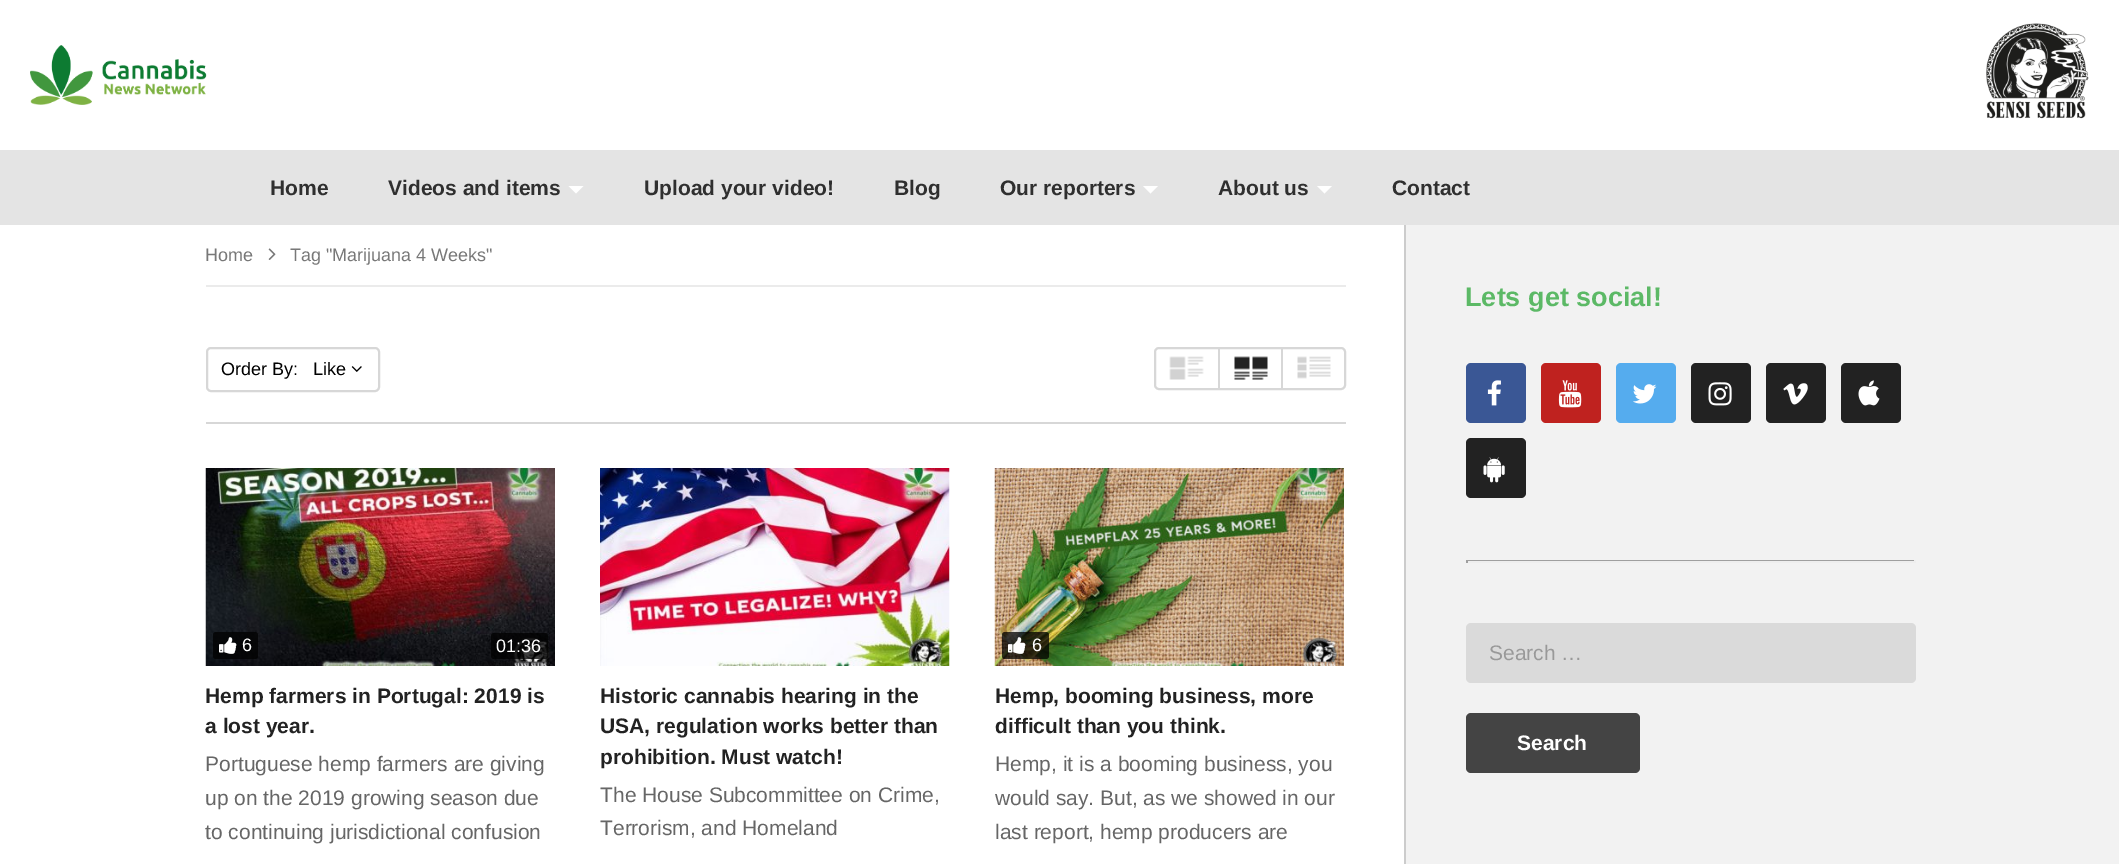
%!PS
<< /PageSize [2119 864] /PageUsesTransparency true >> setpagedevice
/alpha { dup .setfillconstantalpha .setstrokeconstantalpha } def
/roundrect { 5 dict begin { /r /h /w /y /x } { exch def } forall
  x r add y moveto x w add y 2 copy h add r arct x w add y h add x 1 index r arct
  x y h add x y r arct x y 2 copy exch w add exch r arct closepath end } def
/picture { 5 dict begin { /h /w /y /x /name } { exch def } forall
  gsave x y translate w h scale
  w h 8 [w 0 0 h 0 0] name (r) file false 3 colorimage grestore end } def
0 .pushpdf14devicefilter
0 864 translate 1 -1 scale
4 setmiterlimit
1 setgray
0 0 2119 864 rectfill
(img1.rgb) 30 45 177 60 picture
(img2.rgb) 1986 23 103 96 picture
0.894 setgray
0 150 2119 75 rectfill
/LiberationSans-Bold [21 0 0 -21 0 0] selectfont
0.184 setgray
270 195 moveto (Home) show
388 195 moveto (Videos and items) show
1 setgray
newpath 568.5 186 moveto 583.5 186 lineto 576 193.5 lineto closepath fill
0.184 setgray
644 195 moveto (Upload your video!) show
894 195 moveto (Blog) show
1000 195 moveto (Our reporters) show
1 setgray
newpath 1143 186 moveto 1158 186 lineto 1150.5 193.5 lineto closepath fill
0.184 setgray
1218 195 moveto (About us) show
1 setgray
newpath 1317 186 moveto 1332 186 lineto 1324.5 193.5 lineto closepath fill
0.184 setgray
1392 195 moveto (Contact) show
0.922 setgray
206 285 1140 2 rectfill
/LiberationSans-Regular [18 0 0 -18 0 0] selectfont
0.471 setgray
205 261 moveto (Home) show
(img3.rgb) 268 248 8 12 picture
290 261 moveto (Tag "Marijuana 4 Weeks") show
0.843 setgray
206 422 1140 2 rectfill
2 setlinewidth
207 348 172 43 4 roundrect stroke
0 setgray
221 375 moveto (Order By:   Like) show
(img4.rgb) 351 366 11 6 picture
0.843 setgray
1155 348 190 41 4 roundrect stroke
(img5.rgb) 1169 356 35 24 picture
1218 348 2 41 rectfill
(img6.rgb) 1234 356 34 24 picture
1281 348 2 41 rectfill
(img7.rgb) 1297 356 34 23 picture
(img8.rgb) 205 468 350 198 picture
0.75 alpha
0 setgray
213 632 45 27 3 roundrect fill
1 alpha
(img9.rgb) 219 637 18 17 picture
1 setgray
242 651 moveto (6) show
0.75 alpha
0 setgray
491 633 57 26 3 roundrect fill
1 alpha
1 setgray
496 652 moveto (01:36) show
/LiberationSans-Bold [21 0 0 -21 0 0] selectfont
0.133 setgray
205 703 moveto (Hemp farmers in Portugal: 2019 is) show
205 733 moveto (a lost year.) show
/LiberationSans-Regular [21 0 0 -21 0 0] selectfont
0.4 setgray
205 771 moveto (Portuguese hemp farmers are giving) show
205 805 moveto (up on the 2019 growing season due) show
205 839 moveto (to continuing jurisdictional confusion) show
(img10.rgb) 600 468 350 198 picture
/LiberationSans-Bold [21 0 0 -21 0 0] selectfont
0.133 setgray
600 703 moveto (Historic cannabis hearing in the) show
600 733 moveto (USA, regulation works better than) show
600 764 moveto (prohibition. Must watch!) show
/LiberationSans-Regular [21 0 0 -21 0 0] selectfont
0.4 setgray
600 802 moveto (The House Subcommittee on Crime,) show
600 835 moveto (Terrorism, and Homeland) show
(img11.rgb) 994 468 350 198 picture
0.75 alpha
0 setgray
1002 632 47 27 3 roundrect fill
1 alpha
(img12.rgb) 1008 637 18 17 picture
/LiberationSans-Regular [18 0 0 -18 0 0] selectfont
1 setgray
1032 651 moveto (6) show
/LiberationSans-Bold [21 0 0 -21 0 0] selectfont
0.133 setgray
995 703 moveto (Hemp, booming business, more) show
995 733 moveto (difficult than you think.) show
/LiberationSans-Regular [21 0 0 -21 0 0] selectfont
0.4 setgray
995 771 moveto (Hemp, it is a booming business, you) show
995 805 moveto (would say. But, as we showed in our) show
995 839 moveto (last report, hemp producers are) show
0.8 setgray
1404 225 2 639 rectfill
0.949 setgray
1406 225 713 639 rectfill
/LiberationSans-Bold [27 0 0 -27 0 0] selectfont
0.361 0.725 0.4 setrgbcolor
1465 306 moveto (Lets get social!) show
0.227 0.341 0.584 setrgbcolor
1466 363 60 60 5 roundrect fill
(img13.rgb) 1487 380 14 26 picture
0.749 0.133 0.122 setrgbcolor
1541 363 60 60 5 roundrect fill
(img14.rgb) 1558 380 24 28 picture
0.333 0.675 0.933 setrgbcolor
1616 363 60 60 5 roundrect fill
(img15.rgb) 1633 384 24 20 picture
0.133 setgray
1691 363 60 60 5 roundrect fill
(img16.rgb) 1708 382 24 24 picture
1766 363 60 60 5 roundrect fill
(img17.rgb) 1783 383 25 22 picture
1841 363 60 60 5 roundrect fill
(img18.rgb) 1858 380 22 26 picture
1466 438 60 60 5 roundrect fill
(img19.rgb) 1483 457 22 26 picture
0.624 setgray
1466 560 450 1 rectfill
0.933 setgray
1914 560 2 3 rectfill
1466 561 450 2 rectfill
0.624 setgray
1466 560 2 3 rectfill
0.855 setgray
1466 623 450 60 5 roundrect fill
/LiberationSans-Regular [21 0 0 -21 0 0] selectfont
0.6 setgray
1489 660 moveto (Search …) show
0.267 setgray
1466 713 174 60 5 roundrect fill
/LiberationSans-Bold [21 0 0 -21 0 0] selectfont
1 setgray
1517 750 moveto (Search) show
.poppdf14devicefilter showpage
